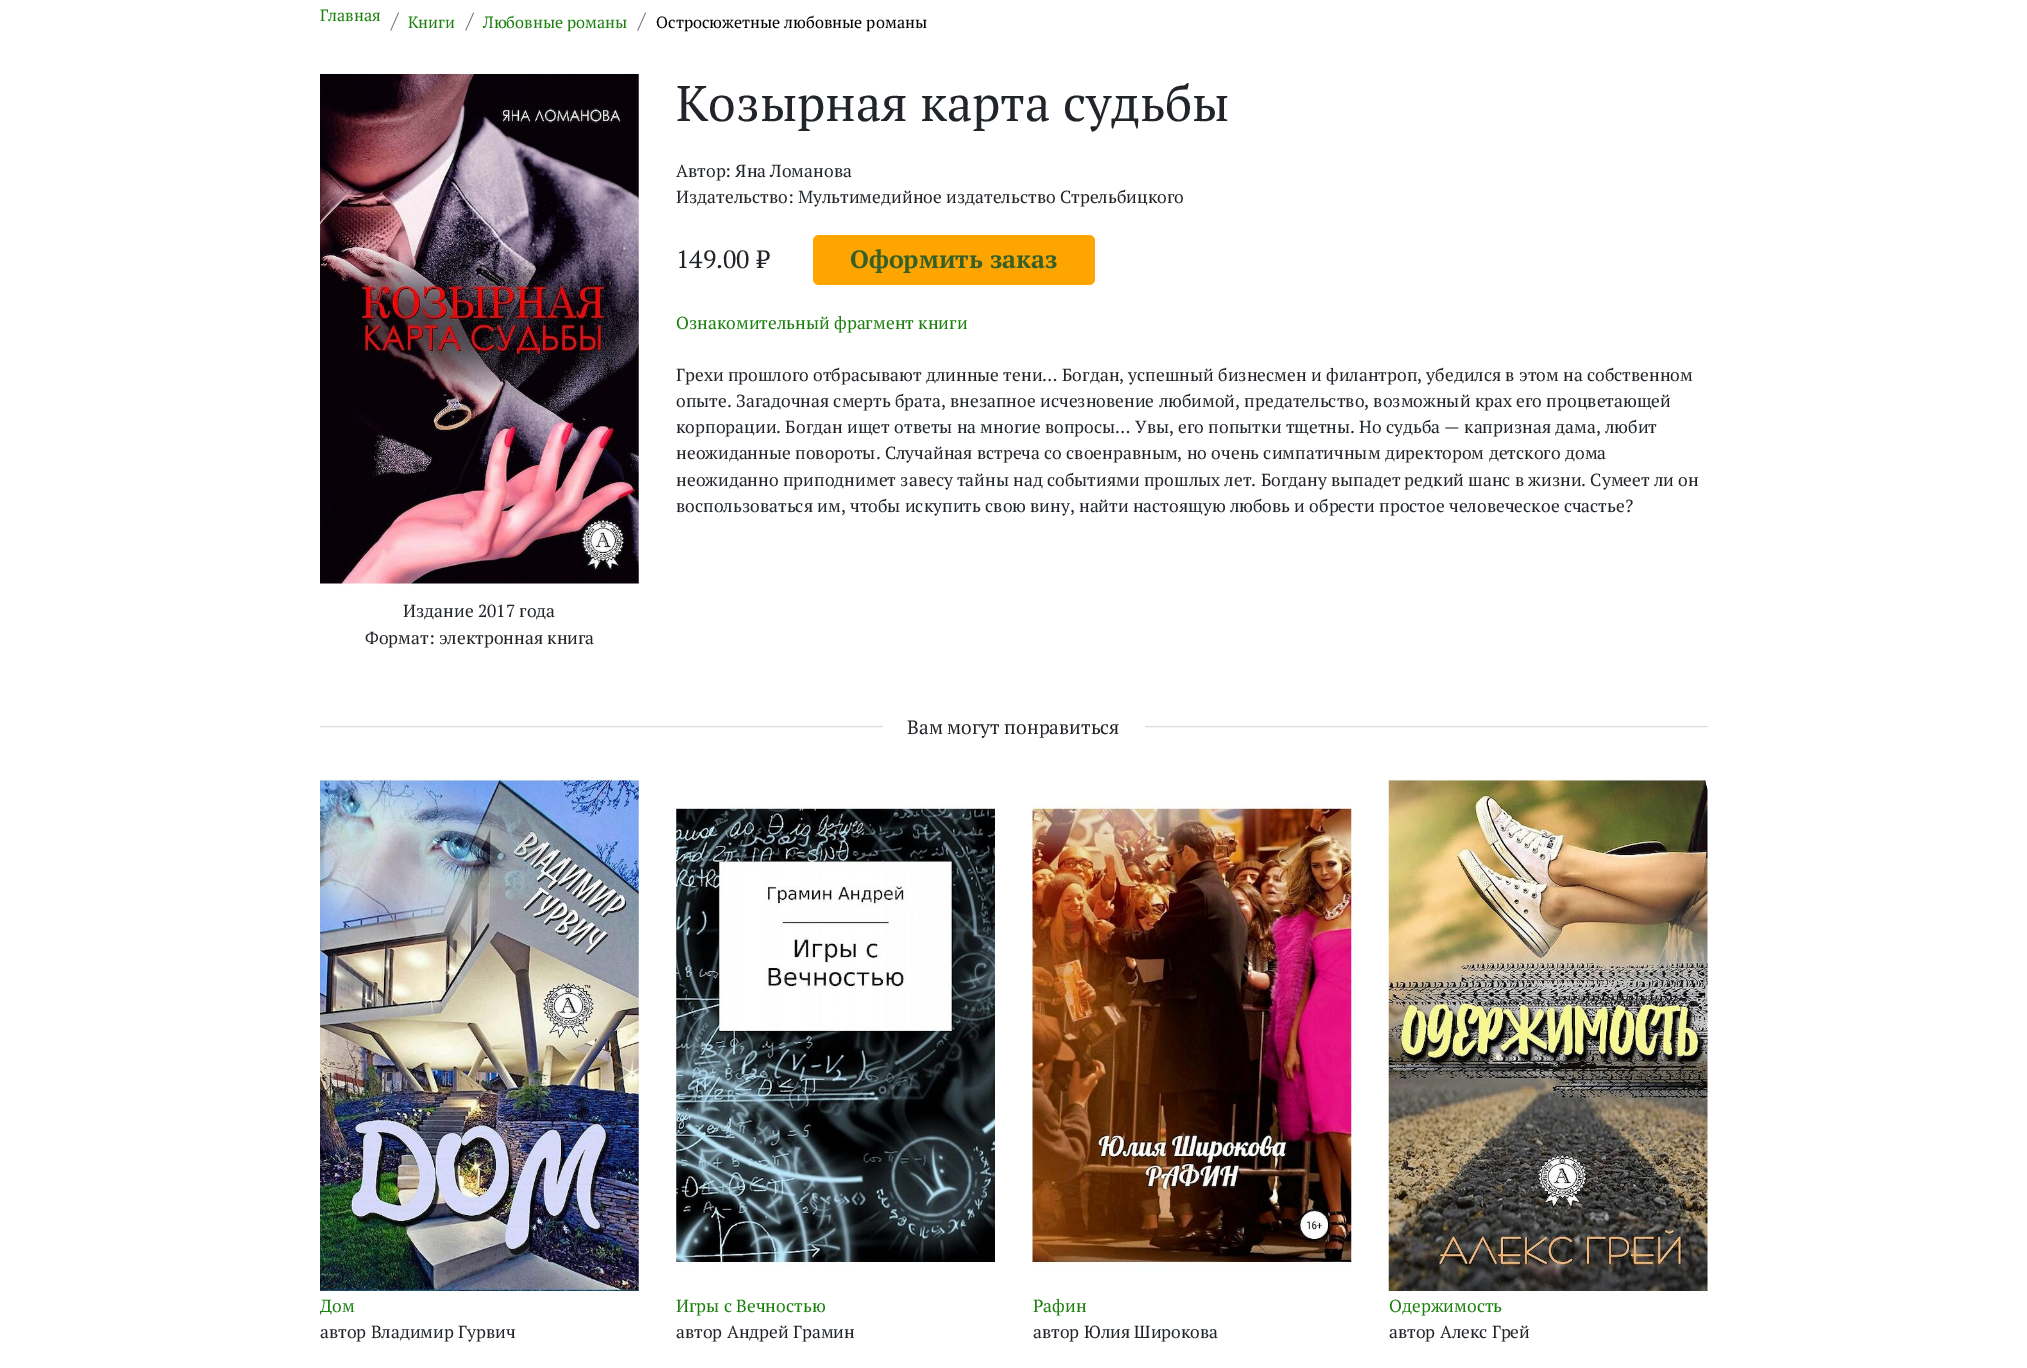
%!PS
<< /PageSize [2027 1368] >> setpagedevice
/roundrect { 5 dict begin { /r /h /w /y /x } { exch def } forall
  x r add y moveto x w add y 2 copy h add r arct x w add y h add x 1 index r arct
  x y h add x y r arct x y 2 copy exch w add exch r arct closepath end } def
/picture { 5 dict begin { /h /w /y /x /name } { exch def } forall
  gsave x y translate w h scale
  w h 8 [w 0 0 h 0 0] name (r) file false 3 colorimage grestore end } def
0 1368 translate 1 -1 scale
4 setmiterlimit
1 setgray
0 0 2027 1368 rectfill
/PTSerif-Regular [16.25 0 0 -16.25 0 0] selectfont
0.106 0.502 0.055 setrgbcolor
320 21 moveto (Главная) show
/PTSerif-Regular [22 0 0 -22 0 0] selectfont
0.424 0.459 0.49 setrgbcolor
391 28 moveto (/) show
/PTSerif-Regular [16.25 0 0 -16.25 0 0] selectfont
0.106 0.502 0.055 setrgbcolor
408 28 moveto (Книги) show
/PTSerif-Regular [22 0 0 -22 0 0] selectfont
0.424 0.459 0.49 setrgbcolor
466 28 moveto (/) show
/PTSerif-Regular [16.25 0 0 -16.25 0 0] selectfont
0.106 0.502 0.055 setrgbcolor
483 28 moveto (Любовные романы) show
/PTSerif-Regular [22 0 0 -22 0 0] selectfont
0.424 0.459 0.49 setrgbcolor
638 28 moveto (/) show
/PTSerif-Regular [16.25 0 0 -16.25 0 0] selectfont
0 setgray
656 28 moveto (Остросюжетные любовные романы) show
/PTSerif-Regular [50 0 0 -50 0 0] selectfont
0.129 0.145 0.161 setrgbcolor
676 121 moveto (Козырная карта судьбы) show
/PTSerif-Regular [17.5 0 0 -17.5 0 0] selectfont
676 177 moveto (Автор: Яна Ломанова) show
676 203 moveto (Издательство: Мультимедийное издательство Стрельбицкого) show
/PTSerif-Regular [25 0 0 -25 0 0] selectfont
676 268 moveto (149.00 ₽) show
1 0.647 0 setrgbcolor
813 235 282 50 6 roundrect fill
/PTSerif-Bold [25 0 0 -25 0 0] selectfont
0.212 0.376 0.153 setrgbcolor
850 268 moveto (Оформить заказ) show
/PTSerif-Regular [17.5 0 0 -17.5 0 0] selectfont
0.106 0.502 0.055 setrgbcolor
676 329 moveto (Ознакомительный фрагмент книги) show
0.129 0.145 0.161 setrgbcolor
676 381 moveto (Грехи прошлого отбрасывают длинные тени… Богдан, успешный бизнесмен и филантроп, убедился в этом на собственном) show
676 407 moveto (опыте. Загадочная смерть брата, внезапное исчезновение любимой, предательство, возможный крах его процветающей) show
676 433 moveto (корпорации. Богдан ищет ответы на многие вопросы… Увы, его попытки тщетны. Но судьба — капризная дама, любит) show
676 459 moveto (неожиданные повороты. Случайная встреча со своенравным, но очень симпатичным директором детского дома) show
676 486 moveto (неожиданно приподнимет завесу тайны над событиями прошлых лет. Богдану выпадет редкий шанс в жизни. Сумеет ли он) show
676 512 moveto (воспользоваться им, чтобы искупить свою вину, найти настоящую любовь и обрести простое человеческое счастье?) show
(img1.rgb) 320 72 319 513 picture
403 617 moveto (Издание 2017 года) show
365 644 moveto (Формат: электронная книга) show
(img2.rgb) 320 726 1388 2 picture
1 setgray
883 726 262 2 rectfill
/PTSerif-Regular [19.25 0 0 -19.25 0 0] selectfont
0.129 0.145 0.161 setrgbcolor
907 734 moveto (Вам могут понравиться) show
(img3.rgb) 320 778 319 514 picture
/PTSerif-Regular [17.5 0 0 -17.5 0 0] selectfont
0.106 0.502 0.055 setrgbcolor
320 1312 moveto (Дом) show
0.129 0.145 0.161 setrgbcolor
320 1338 moveto (автор Владимир Гурвич) show
(img4.rgb) 676 805 319 461 picture
0.106 0.502 0.055 setrgbcolor
676 1312 moveto (Игры с Вечностью) show
0.129 0.145 0.161 setrgbcolor
676 1338 moveto (автор Андрей Грамин) show
(img5.rgb) 1032 799 320 473 picture
0.106 0.502 0.055 setrgbcolor
1033 1312 moveto (Рафин) show
0.129 0.145 0.161 setrgbcolor
1033 1338 moveto (автор Юлия Широкова) show
(img6.rgb) 1388 778 320 514 picture
0.106 0.502 0.055 setrgbcolor
1389 1312 moveto (Одержимость) show
0.129 0.145 0.161 setrgbcolor
1389 1338 moveto (автор Алекс Грей) show
showpage
